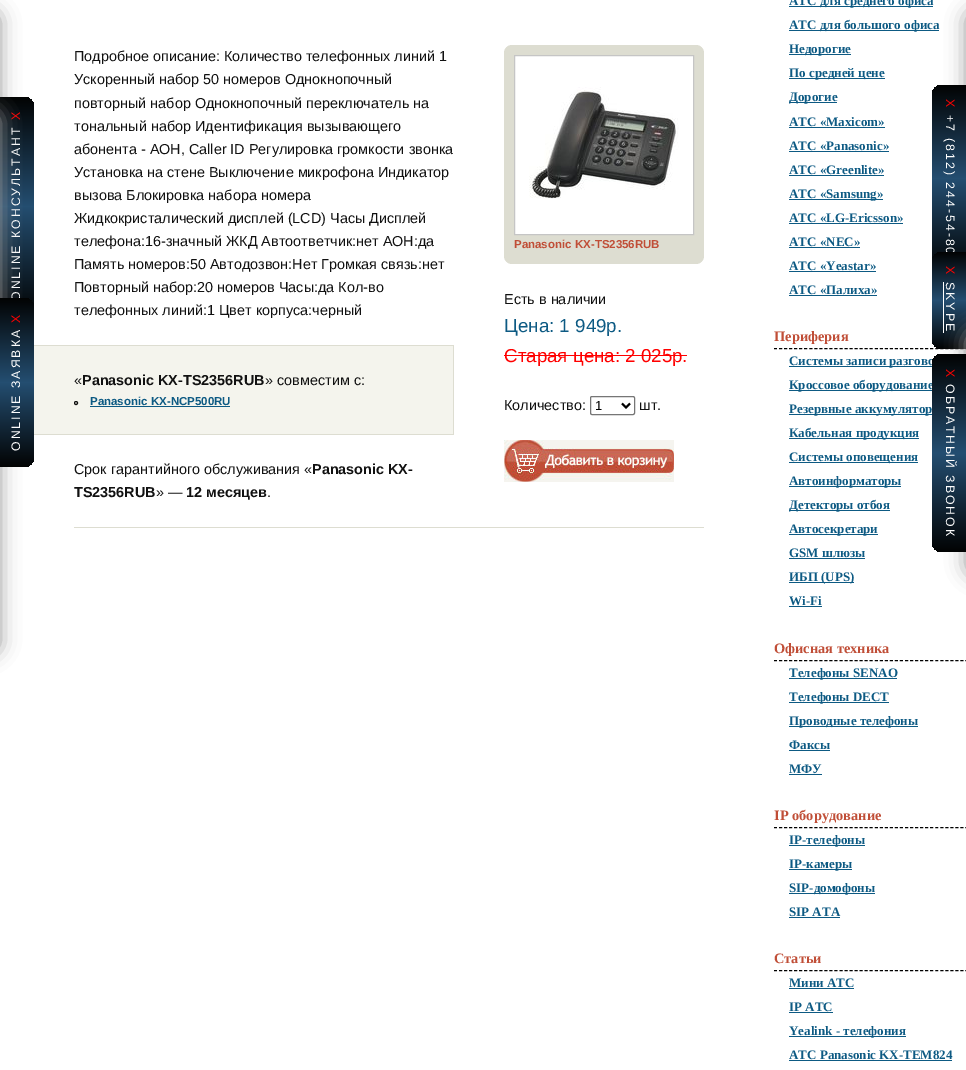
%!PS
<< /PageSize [966 1070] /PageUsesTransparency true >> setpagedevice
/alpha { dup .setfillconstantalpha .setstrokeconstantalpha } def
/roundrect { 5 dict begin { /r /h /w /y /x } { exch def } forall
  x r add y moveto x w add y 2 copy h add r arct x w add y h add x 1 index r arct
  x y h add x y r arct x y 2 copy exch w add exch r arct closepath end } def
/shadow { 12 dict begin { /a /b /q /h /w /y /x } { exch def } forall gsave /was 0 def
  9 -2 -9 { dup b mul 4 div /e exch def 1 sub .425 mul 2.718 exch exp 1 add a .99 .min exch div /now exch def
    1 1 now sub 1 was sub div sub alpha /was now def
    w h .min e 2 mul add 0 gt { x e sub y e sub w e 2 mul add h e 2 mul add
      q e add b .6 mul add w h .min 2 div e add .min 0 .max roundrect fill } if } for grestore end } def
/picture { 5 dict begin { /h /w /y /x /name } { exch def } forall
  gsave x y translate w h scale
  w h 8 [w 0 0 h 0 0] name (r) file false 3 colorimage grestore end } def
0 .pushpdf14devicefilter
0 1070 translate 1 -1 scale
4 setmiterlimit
1 setgray
0 0 966 1070 rectfill
0.867 0.867 0.82 setrgbcolor
74 527 630 1 rectfill
/LiberationSans-Regular [14.4 0 0 -14.4 0 0] selectfont
0.067 setgray
74 61 moveto (Подробное описание: Количество телефонных линий 1) show
74 84 moveto (Ускоренный набор 50 номеров Однокнопочный) show
74 108 moveto (повторный набор Однокнопочный переключатель на) show
74 131 moveto (тональный набор Идентификация вызывающего) show
74 154 moveto (абонента - АОН, Caller ID Регулировка громкости звонка) show
74 177 moveto (Установка на стене Выключение микрофона Индикатор) show
74 200 moveto (вызова Блокировка набора номера) show
74 223 moveto (Жидкокристалический дисплей \(LCD\) Часы Дисплей) show
74 246 moveto (телефона:16-значный ЖКД Автоответчик:нет АОН:да) show
74 269 moveto (Память номеров:50 Автодозвон:Нет Громкая связь:нет) show
74 292 moveto (Повторный набор:20 номеров Часы:да Кол-во) show
74 315 moveto (телефонных линий:1 Цвет корпуса:черный) show
0.957 0.957 0.929 setrgbcolor
34 346 419 88 rectfill
0.867 0.867 0.82 setrgbcolor
34 345 420 1 rectfill
453 345 1 90 rectfill
34 434 420 1 rectfill
0.067 setgray
74 385 moveto («) show
/LiberationSans-Bold [14.4 0 0 -14.4 0 0] selectfont
82 385 moveto (Panasonic KX-TS2356RUB) show
/LiberationSans-Regular [14.4 0 0 -14.4 0 0] selectfont
265 385 moveto (» совместим с:) show
newpath 76 403 1.5 0 360 arc closepath stroke
/LiberationSans-Bold [11.5 0 0 -11.5 0 0] selectfont
0.051 0.353 0.514 setrgbcolor
90 405 moveto (Panasonic KX-NCP500RU) show
90 406 140 1 rectfill
/LiberationSans-Regular [14.4 0 0 -14.4 0 0] selectfont
0.067 setgray
74 474 moveto (Срок гарантийного обслуживания «) show
/LiberationSans-Bold [14.4 0 0 -14.4 0 0] selectfont
312 474 moveto (Panasonic KX-) show
74 497 moveto (TS2356RUB) show
/LiberationSans-Regular [14.4 0 0 -14.4 0 0] selectfont
156 497 moveto (» —) show
/LiberationSans-Bold [14.4 0 0 -14.4 0 0] selectfont
186 497 moveto (12 месяцев) show
/LiberationSans-Regular [14.4 0 0 -14.4 0 0] selectfont
267 497 moveto (.) show
0.867 0.867 0.82 setrgbcolor
504 45 200 219 8 roundrect fill
1 setgray
newpath 514.5 55.5 moveto 693.5 55.5 lineto 693.5 234.5 lineto 514.5 234.5 lineto closepath gsave fill grestore
0.773 setgray
stroke
(img1.rgb) 529 87 150 112 picture
/LiberationSans-Bold [11.5 0 0 -11.5 0 0] selectfont
0.753 0.306 0.216 setrgbcolor
514 248 moveto (Panasonic KX-TS2356RUB) show
/LiberationSans-Regular [14.4 0 0 -14.4 0 0] selectfont
0.067 setgray
504 304 moveto (Есть в наличии) show
/LiberationSans-Regular [18.75 0 0 -18.75 0 0] selectfont
0.051 0.353 0.514 setrgbcolor
504 332 moveto (Цена: 1 949р.) show
1 0 0 setrgbcolor
504 362 moveto (Старая цена: 2 025р.) show
504 355 183 1 rectfill
/LiberationSans-Regular [14.4 0 0 -14.4 0 0] selectfont
0.067 setgray
504 410 moveto (Количество:) show
0.463 setgray
590.5 396.5 44 18 1.5 roundrect stroke
0 setgray
2 setlinewidth
newpath 622 403.5 moveto 626 407.5 lineto 630 403.5 lineto stroke
/LiberationSans-Regular [13 0 0 -13 0 0] selectfont
595 410 moveto (1) show
/LiberationSans-Regular [14.4 0 0 -14.4 0 0] selectfont
0.067 setgray
639 410 moveto (шт.) show
(img2.rgb) 504 440 170 42 picture
0.051 0.353 0.514 setrgbcolor
789 6 144 1 rectfill
/LiberationSerif-Bold [13 0 0 -13 0 0] selectfont
789 5 moveto (АТС для среднего офиса) show
789 30 150 1 rectfill
789 29 moveto (АТС для большого офиса) show
789 54 62 1 rectfill
789 53 moveto (Недорогие) show
789 78 96 1 rectfill
789 77 moveto (По средней цене) show
789 102 48 1 rectfill
789 101 moveto (Дорогие) show
789 126 moveto (АТС «Maxicom») show
789 127 96 1 rectfill
789 150 moveto (АТС «Panasonic») show
789 151 100 1 rectfill
789 174 moveto (АТС «Greenlite») show
789 175 95 1 rectfill
789 199 94 1 rectfill
789 198 moveto (АТС «Samsung») show
789 222 moveto (АТС «LG-Ericsson») show
789 223 114 1 rectfill
789 246 moveto (АТС «NEC») show
789 247 71 1 rectfill
789 270 moveto (АТС «Yeastar») show
789 271 87 1 rectfill
789 294 moveto (АТС «Палиха») show
789 295 88 1 rectfill
0 setgray
1 setlinewidth
[3 2.04] 0 setdash
newpath 774 348.5 moveto 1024 348.5 lineto stroke
/LiberationSerif-Bold [14.4 0 0 -14.4 0 0] selectfont
0.753 0.306 0.216 setrgbcolor
774 341 moveto (Периферия) show
0.051 0.353 0.514 setrgbcolor
789 366 143 1 rectfill
/LiberationSerif-Bold [13 0 0 -13 0 0] selectfont
789 365 moveto (Системы записи разгово) show
789 390 144 1 rectfill
789 389 moveto (Кроссовое оборудование) show
789 414 143 1 rectfill
789 413 moveto (Резервные аккумулятор) show
789 438 130 1 rectfill
789 437 moveto (Кабельная продукция) show
789 462 129 1 rectfill
789 461 moveto (Системы оповещения) show
789 486 112 1 rectfill
789 485 moveto (Автоинформаторы) show
789 510 101 1 rectfill
789 509 moveto (Детекторы отбоя) show
789 534 89 1 rectfill
789 533 moveto (Автосекретари) show
789 557 moveto (GSM шлюзы) show
789 558 76 1 rectfill
789 582 65 1 rectfill
789 581 moveto (ИБП \(UPS\)) show
789 605 moveto (Wi-Fi) show
789 606 33 1 rectfill
0 setgray
newpath 774 660.5 moveto 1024 660.5 lineto stroke
/LiberationSerif-Bold [14.4 0 0 -14.4 0 0] selectfont
0.753 0.306 0.216 setrgbcolor
774 653 moveto (Офисная техника) show
0.051 0.353 0.514 setrgbcolor
789 678 108 1 rectfill
/LiberationSerif-Bold [13 0 0 -13 0 0] selectfont
789 677 moveto (Телефоны SENAO) show
789 702 100 1 rectfill
789 701 moveto (Телефоны DECT) show
789 726 129 1 rectfill
789 725 moveto (Проводные телефоны) show
789 749 moveto (Факсы) show
789 750 41 1 rectfill
789 773 moveto (МФУ) show
789 774 33 1 rectfill
0 setgray
newpath 774 827.5 moveto 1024 827.5 lineto stroke
/LiberationSerif-Bold [14.4 0 0 -14.4 0 0] selectfont
0.753 0.306 0.216 setrgbcolor
774 820 moveto (IP оборудование) show
0.051 0.353 0.514 setrgbcolor
789 845 76 1 rectfill
/LiberationSerif-Bold [13 0 0 -13 0 0] selectfont
789 844 moveto (IP-телефоны) show
789 869 63 1 rectfill
789 868 moveto (IP-камеры) show
789 893 86 1 rectfill
789 892 moveto (SIP-домофоны) show
789 916 moveto (SIP ATA) show
789 917 51 1 rectfill
0 setgray
newpath 774 970.5 moveto 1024 970.5 lineto stroke
/LiberationSerif-Bold [14.4 0 0 -14.4 0 0] selectfont
0.753 0.306 0.216 setrgbcolor
774 963 moveto (Статьи) show
/LiberationSerif-Bold [13 0 0 -13 0 0] selectfont
0.051 0.353 0.514 setrgbcolor
789 987 moveto (Мини АТС) show
789 988 65 1 rectfill
789 1011 moveto (IP АТС) show
789 1012 44 1 rectfill
789 1036 117 1 rectfill
789 1035 moveto (Yealink - телефония) show
789 1059 moveto (АТС Panasonic KX-TEM824) show
789 1060 163 1 rectfill
0.6 setgray
-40 10 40 393 10 10 1 shadow
gsave newpath 0 97 moveto 24 97 lineto 29.5 97 34 101.5 34 107 curveto 34 306 lineto 34 311.5 29.5 316 24 316 curveto 0 316 lineto closepath clip newpath
<< /ShadingType 2 /ColorSpace /DeviceRGB /Coords [17 97 17 316] /Extend [true true] /Function << /FunctionType 3 /Domain [0 1] /Functions [<< /FunctionType 2 /Domain [0 1] /C0 [0.008 0.012 0.012] /C1 [0.141 0.306 0.443] /N 1 >> << /FunctionType 2 /Domain [0 1] /C0 [0.141 0.306 0.443] /C1 [0.008 0.012 0.012] /N 1 >>] /Bounds [0.5] /Encode [0 1 0 1] >> >> shfill grestore
/LiberationSans-Regular [12.25 0 0 -12.25 0 0] selectfont
1 0 0 setrgbcolor
gsave 20 120 translate -90 rotate 0 0 moveto 2 0 (X) ashow grestore
0.996 setgray
gsave 20 301 translate -90 rotate 0 0 moveto 2 0 (ONLINE КОНСУЛЬТАНТ) ashow grestore
0.6 setgray
966 10 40 336 10 10 1 shadow
gsave newpath 942 85 moveto 966 85 lineto 966 272 lineto 942 272 lineto 936.5 272 932 267.5 932 262 curveto 932 95 lineto 932 89.5 936.5 85 942 85 curveto closepath clip newpath
<< /ShadingType 2 /ColorSpace /DeviceRGB /Coords [949 85 949 272] /Extend [true true] /Function << /FunctionType 3 /Domain [0 1] /Functions [<< /FunctionType 2 /Domain [0 1] /C0 [0.008 0.012 0.012] /C1 [0.141 0.306 0.443] /N 1 >> << /FunctionType 2 /Domain [0 1] /C0 [0.141 0.306 0.443] /C1 [0.008 0.012 0.012] /N 1 >>] /Bounds [0.5] /Encode [0 1 0 1] >> >> shfill grestore
1 0 0 setrgbcolor
gsave 946 99 translate 90 rotate 0 0 moveto 2 0 (X) ashow grestore
0.996 setgray
gsave 946 115 translate 90 rotate 0 0 moveto 2 0 (+7 \(812\) 244-54-80) ashow grestore
gsave newpath 942 252 moveto 966 252 lineto 966 349 lineto 942 349 lineto 936.5 349 932 344.5 932 339 curveto 932 262 lineto 932 256.5 936.5 252 942 252 curveto closepath clip newpath
<< /ShadingType 2 /ColorSpace /DeviceRGB /Coords [949 252 949 349] /Extend [true true] /Function << /FunctionType 3 /Domain [0 1] /Functions [<< /FunctionType 2 /Domain [0 1] /C0 [0.008 0.012 0.012] /C1 [0.141 0.306 0.443] /N 1 >> << /FunctionType 2 /Domain [0 1] /C0 [0.141 0.306 0.443] /C1 [0.008 0.012 0.012] /N 1 >>] /Bounds [0.5] /Encode [0 1 0 1] >> >> shfill grestore
1 0 0 setrgbcolor
gsave 946 266 translate 90 rotate 0 0 moveto 2 0 (X) ashow grestore
0.996 setgray
gsave 946 282 translate 90 rotate 0 0 moveto 2 0 (SKYPE) ashow grestore
1 setgray
943 282 1 51 rectfill
0.6 setgray
-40 110 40 544 10 10 1 shadow
gsave newpath 0 298 moveto 24 298 lineto 29.5 298 34 302.5 34 308 curveto 34 457 lineto 34 462.5 29.5 467 24 467 curveto 0 467 lineto closepath clip newpath
<< /ShadingType 2 /ColorSpace /DeviceRGB /Coords [17 298 17 467] /Extend [true true] /Function << /FunctionType 3 /Domain [0 1] /Functions [<< /FunctionType 2 /Domain [0 1] /C0 [0.008 0.012 0.012] /C1 [0.141 0.306 0.443] /N 1 >> << /FunctionType 2 /Domain [0 1] /C0 [0.141 0.306 0.443] /C1 [0.008 0.012 0.012] /N 1 >>] /Bounds [0.5] /Encode [0 1 0 1] >> >> shfill grestore
1 0 0 setrgbcolor
gsave 20 323 translate -90 rotate 0 0 moveto 2 0 (X) ashow grestore
0.996 setgray
gsave 20 451 translate -90 rotate 0 0 moveto 2 0 (ONLINE ЗАЯВКА) ashow grestore
0.6 setgray
966 330 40 246 10 10 1 shadow
gsave newpath 942 354 moveto 966 354 lineto 966 552 lineto 942 552 lineto 936.5 552 932 547.5 932 542 curveto 932 364 lineto 932 358.5 936.5 354 942 354 curveto closepath clip newpath
<< /ShadingType 2 /ColorSpace /DeviceRGB /Coords [949 354 949 552] /Extend [true true] /Function << /FunctionType 3 /Domain [0 1] /Functions [<< /FunctionType 2 /Domain [0 1] /C0 [0.008 0.012 0.012] /C1 [0.141 0.306 0.443] /N 1 >> << /FunctionType 2 /Domain [0 1] /C0 [0.141 0.306 0.443] /C1 [0.008 0.012 0.012] /N 1 >>] /Bounds [0.5] /Encode [0 1 0 1] >> >> shfill grestore
1 0 0 setrgbcolor
gsave 946 369 translate 90 rotate 0 0 moveto 2 0 (X) ashow grestore
0.996 setgray
gsave 946 384 translate 90 rotate 0 0 moveto 2 0 (ОБРАТНЫЙ ЗВОНОК) ashow grestore
.poppdf14devicefilter showpage
